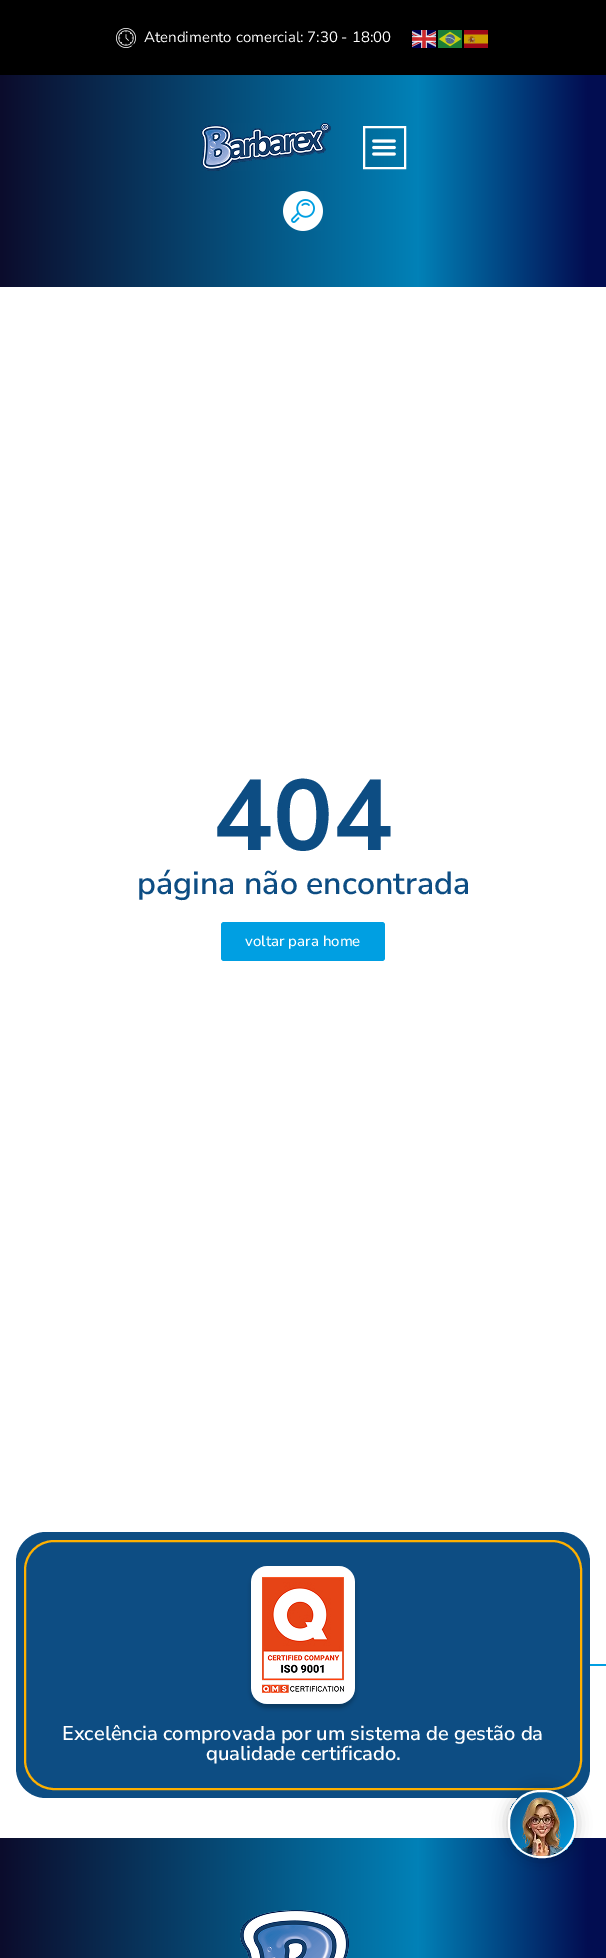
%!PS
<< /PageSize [606 1958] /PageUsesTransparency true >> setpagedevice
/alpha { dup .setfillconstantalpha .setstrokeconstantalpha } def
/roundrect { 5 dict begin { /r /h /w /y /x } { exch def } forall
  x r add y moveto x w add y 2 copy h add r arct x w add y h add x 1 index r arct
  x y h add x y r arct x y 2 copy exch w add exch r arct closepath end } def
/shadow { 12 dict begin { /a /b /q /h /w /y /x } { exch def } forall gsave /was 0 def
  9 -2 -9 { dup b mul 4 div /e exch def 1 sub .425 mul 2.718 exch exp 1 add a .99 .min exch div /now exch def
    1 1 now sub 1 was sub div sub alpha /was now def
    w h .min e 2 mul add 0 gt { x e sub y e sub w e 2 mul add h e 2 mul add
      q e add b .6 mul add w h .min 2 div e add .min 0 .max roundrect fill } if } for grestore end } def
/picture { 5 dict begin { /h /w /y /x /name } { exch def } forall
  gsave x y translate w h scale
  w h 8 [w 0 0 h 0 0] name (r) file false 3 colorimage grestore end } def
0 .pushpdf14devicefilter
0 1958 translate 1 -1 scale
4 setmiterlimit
1 setgray
0 0 606 1958 rectfill
0 setgray
0 0 606 75 rectfill
(img1.rgb) 116 28 20 20 picture
/NunitoSans-Regular [15 0 0 -15 0 0] selectfont
1 setgray
144 42 moveto (Atendimento comercial: 7:30 - 18:00) show
(img2.rgb) 412 30 24 18 picture
(img3.rgb) 438 30 24 18 picture
(img4.rgb) 464 30 24 18 picture
gsave newpath 0 75 moveto 606 75 lineto 606 287 lineto 0 287 lineto closepath clip newpath
<< /ShadingType 2 /ColorSpace /DeviceRGB /Coords [0 181 606 181] /Extend [true true] /Function << /FunctionType 3 /Domain [0 1] /Functions [<< /FunctionType 2 /Domain [0 1] /C0 [0.047 0.047 0.173] /C1 [0.004 0.506 0.718] /N 1 >> << /FunctionType 2 /Domain [0 1] /C0 [0.004 0.506 0.718] /C1 [0.008 0.051 0.318] /N 1 >> << /FunctionType 2 /Domain [0 1] /C0 [0.008 0.051 0.318] /C1 [0.008 0.051 0.318] /N 1 >>] /Bounds [0.69 0.97] /Encode [0 1 0 1 0 1] >> >> shfill grestore
gsave newpath 365 128 moveto 404 128 lineto 404 167 lineto 365 167 lineto closepath clip newpath
<< /ShadingType 2 /ColorSpace /DeviceRGB /Coords [0 181 606 181] /Extend [true true] /Function << /FunctionType 3 /Domain [0 1] /Functions [<< /FunctionType 2 /Domain [0 1] /C0 [0.043 0.043 0.165] /C1 [0.004 0.482 0.682] /N 1 >> << /FunctionType 2 /Domain [0 1] /C0 [0.004 0.482 0.682] /C1 [0.008 0.047 0.302] /N 1 >> << /FunctionType 2 /Domain [0 1] /C0 [0.008 0.047 0.302] /C1 [0.008 0.047 0.302] /N 1 >>] /Bounds [0.69 0.97] /Encode [0 1 0 1 0 1] >> >> shfill grestore
(img5.rgb) 201 123 130 48 picture
2 setlinewidth
364 127 41 41 rectstroke
(img6.rgb) 372 139 24 17 picture
(img7.rgb) 283 191 40 40 picture
/NunitoSans-Bold [100 0 0 -100 0 0] selectfont
0.051 0.302 0.514 setrgbcolor
213 850 moveto (404) show
/NunitoSans-SemiBold [32 0 0 -32 0 0] selectfont
137 894 moveto (página não encontrada) show
0 0.624 0.886 setrgbcolor
221 922 164 39 3 roundrect fill
/NunitoSans-Medium [15 0 0 -15 0 0] selectfont
1 setgray
245 946 moveto (voltar para home) show
0 0.624 0.886 setrgbcolor
590 1664 16 2 rectfill
0.051 0.302 0.514 setrgbcolor
16 1532 574 266 30 roundrect fill
0.996 0.69 0 setrgbcolor
25 1541 556 248 29 roundrect stroke
0 setgray
251 1570 104 138 16 2 0.25 shadow
(img8.rgb) 251 1566 104 138 picture
/NunitoSans-SemiBold [20 0 0 -20 0 0] selectfont
1 setgray
62 1740 moveto (Excelência comprovada por um sistema de gestão da) show
206 1760 moveto (qualidade certificado.) show
gsave newpath 0 1838 moveto 606 1838 lineto 606 1958 lineto 0 1958 lineto closepath clip newpath
<< /ShadingType 2 /ColorSpace /DeviceRGB /Coords [0 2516 606 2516] /Extend [true true] /Function << /FunctionType 3 /Domain [0 1] /Functions [<< /FunctionType 2 /Domain [0 1] /C0 [0.047 0.047 0.173] /C1 [0.004 0.506 0.718] /N 1 >> << /FunctionType 2 /Domain [0 1] /C0 [0.004 0.506 0.718] /C1 [0.008 0.051 0.318] /N 1 >> << /FunctionType 2 /Domain [0 1] /C0 [0.008 0.051 0.318] /C1 [0.008 0.051 0.318] /N 1 >>] /Bounds [0.69 0.97] /Encode [0 1 0 1 0 1] >> >> shfill grestore
(img9.rgb) 240 1910 109 48 picture
0 setgray
508 1790 68 68 32 7.5 0.25 shadow
gsave
508 1790 68 68 32 roundrect clip newpath
gsave newpath 510 1792 moveto 574 1792 lineto 574 1856 lineto 510 1856 lineto closepath clip newpath
<< /ShadingType 2 /ColorSpace /DeviceRGB /Coords [510 1792 574 1856] /Extend [true true] /Function << /FunctionType 2 /Domain [0 1] /C0 [0.051 0.302 0.514] /C1 [0 0.624 0.886] /N 1 >> >> shfill grestore
grestore
1 setgray
509 1791 66 66 31 roundrect stroke
(img10.rgb) 521 1797 43 59 picture
.poppdf14devicefilter showpage
